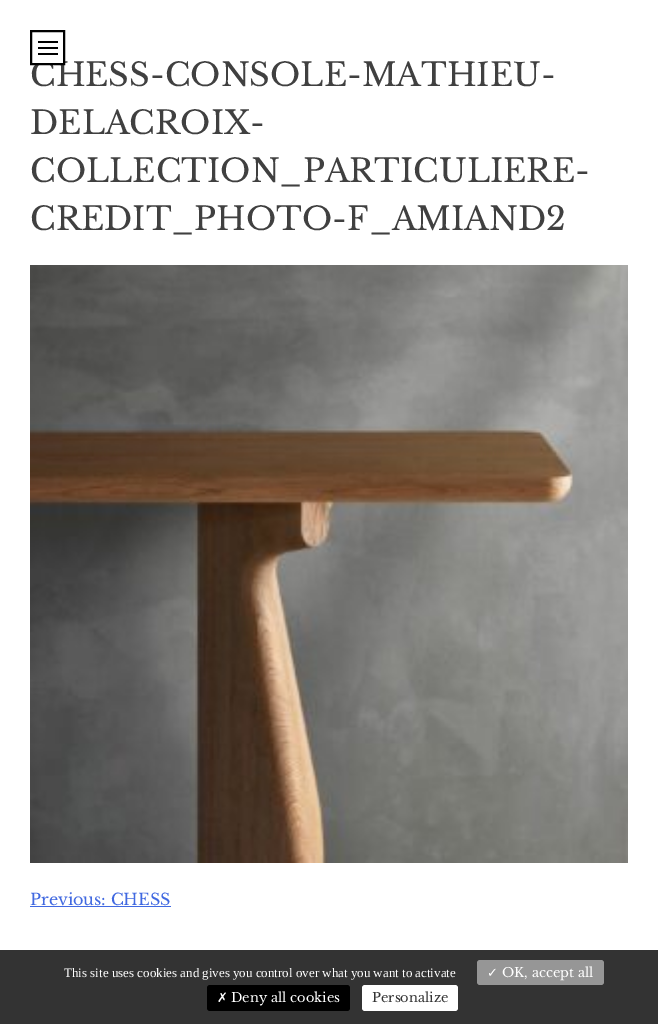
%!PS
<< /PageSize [658 1024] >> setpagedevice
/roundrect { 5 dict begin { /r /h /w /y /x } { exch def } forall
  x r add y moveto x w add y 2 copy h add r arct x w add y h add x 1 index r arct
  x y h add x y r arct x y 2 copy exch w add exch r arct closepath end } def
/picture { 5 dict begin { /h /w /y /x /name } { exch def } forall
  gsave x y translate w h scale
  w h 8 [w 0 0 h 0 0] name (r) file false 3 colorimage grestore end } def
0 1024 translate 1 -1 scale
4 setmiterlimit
1 setgray
0 0 658 1024 rectfill
/LibreBaskerville-Regular [32 0 0 -32 0 0] selectfont
0.251 setgray
30 86 moveto (CHESS-CONSOLE-MATHIEU-) show
1 setgray
37 61 26 2 rectfill
0 setgray
2 setlinewidth
31 31 33 33 rectstroke
38 41 20 2 rectfill
38 47 20 2 rectfill
38 53 20 2 rectfill
0.251 setgray
30 134 moveto (DELACROIX-) show
30 182 moveto (COLLECTION_PARTICULIERE-) show
30 230 moveto (CREDIT_PHOTO-F_AMIAND2) show
(img1.rgb) 30 265 598 598 picture
/LibreBaskerville-Regular [16 0 0 -16 0 0] selectfont
0.255 0.412 0.882 setrgbcolor
30 905 moveto (Previous: CHESS) show
30 906 141 1 rectfill
(img2.rgb) 472 61 53 1 picture
0.2 setgray
0 950 658 74 rectfill
/LiberationSerif-Regular [13 0 0 -13 0 0] selectfont
1 setgray
64 977 moveto (This site uses cookies and gives you control over what you want to activate) show
0.588 setgray
477 960 127 25 3 roundrect fill
/DejaVuSans-Regular [13 0 0 -13 0 0] selectfont
1 setgray
487 977 moveto (✓) show
/LibreBaskerville-Regular [13 0 0 -13 0 0] selectfont
502 977 moveto (OK, accept all) show
0 setgray
207 985 143 26 3 roundrect fill
/DejaVuSans-Regular [13 0 0 -13 0 0] selectfont
1 setgray
217 1002 moveto (✗) show
/LibreBaskerville-Regular [13 0 0 -13 0 0] selectfont
231 1002 moveto (Deny all cookies) show
362 985 96 26 3 roundrect fill
0.2 setgray
372 1002 moveto (Personalize) show
showpage
